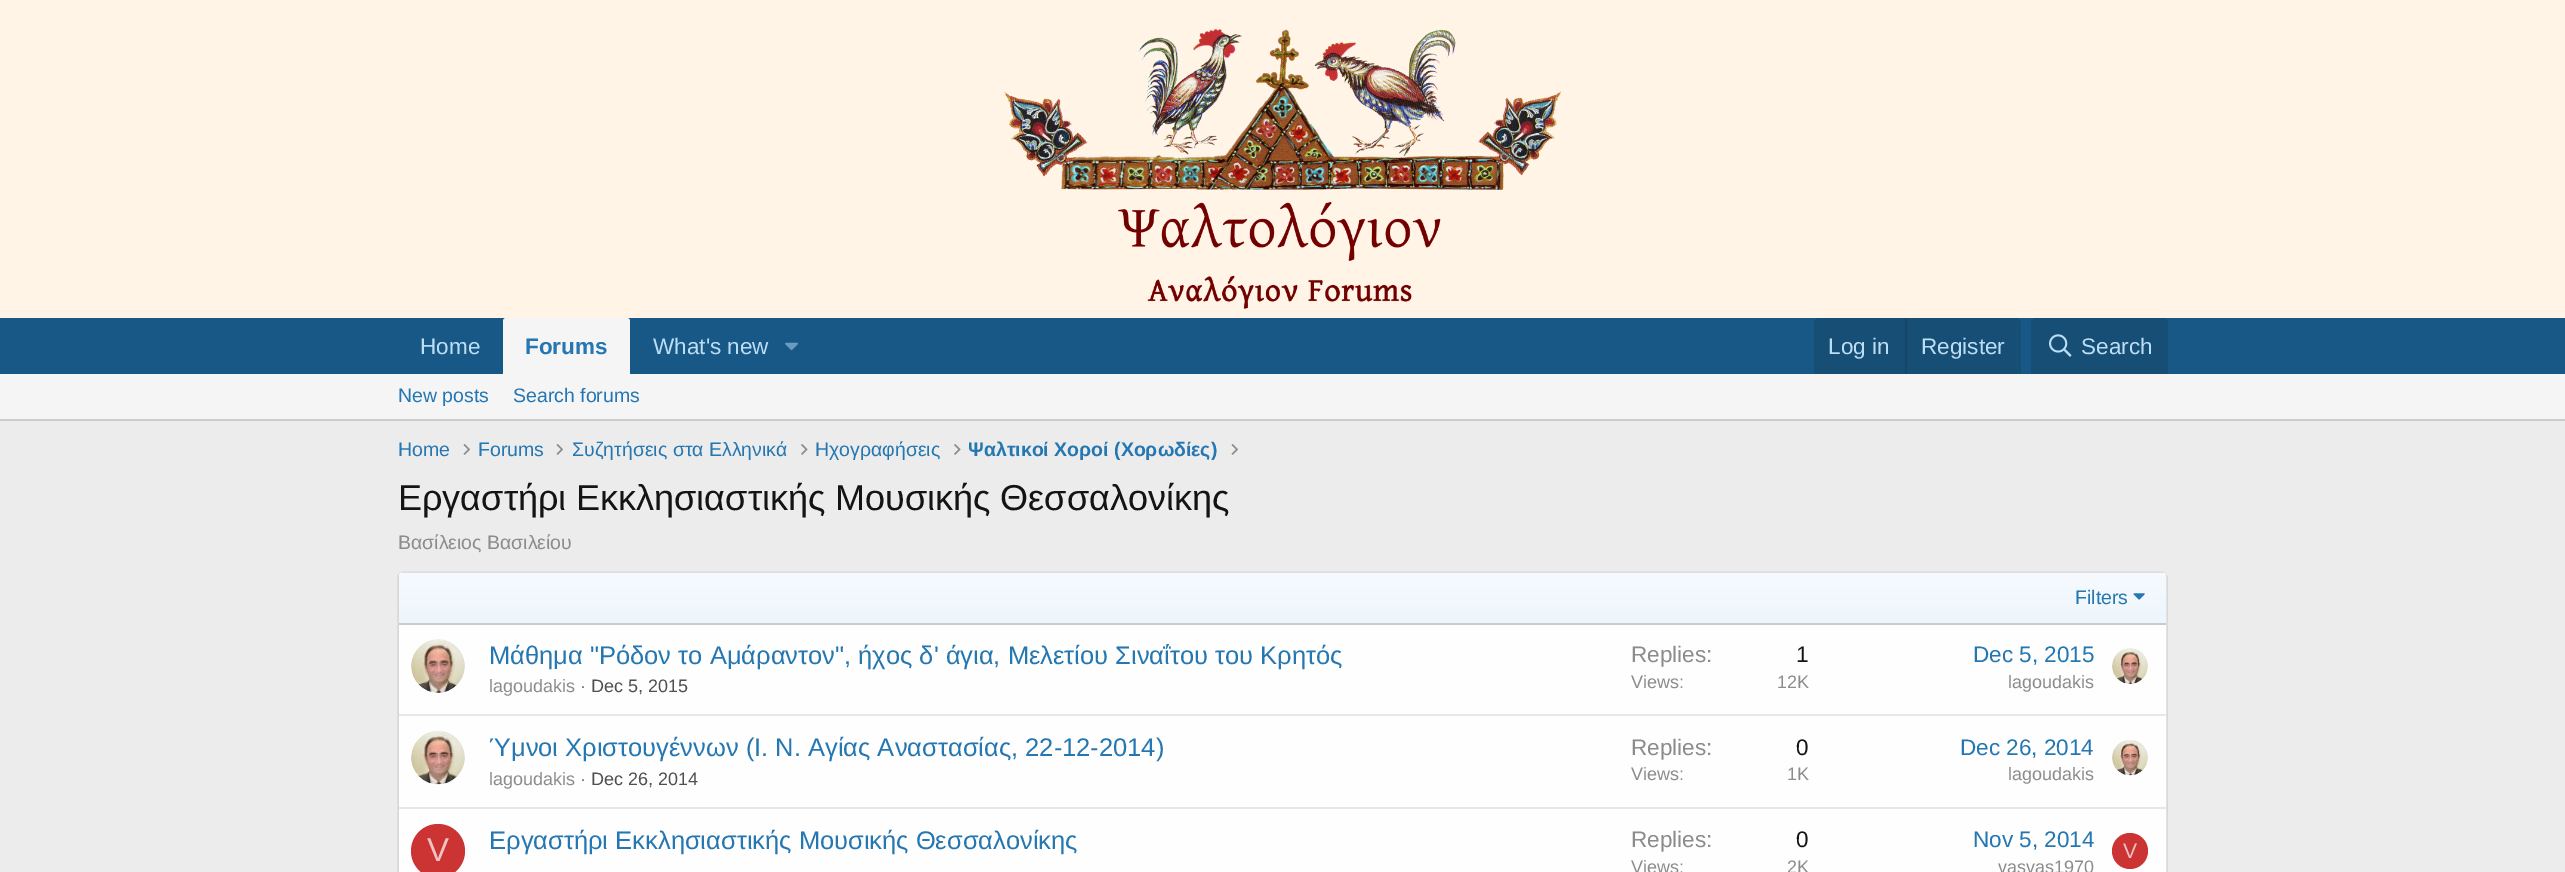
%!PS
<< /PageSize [2565 872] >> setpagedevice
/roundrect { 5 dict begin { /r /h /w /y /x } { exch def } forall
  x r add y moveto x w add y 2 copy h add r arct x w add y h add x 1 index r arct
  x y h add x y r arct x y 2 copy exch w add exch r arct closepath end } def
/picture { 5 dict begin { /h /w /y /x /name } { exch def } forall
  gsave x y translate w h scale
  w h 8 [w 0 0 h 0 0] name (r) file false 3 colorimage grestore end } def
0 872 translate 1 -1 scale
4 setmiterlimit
0.925 setgray
0 0 2565 872 rectfill
1 0.957 0.898 setrgbcolor
0 0 2565 318 rectfill
(img1.rgb) 1004 28 558 281 picture
0.094 0.345 0.525 setrgbcolor
0 318 2565 56 rectfill
/LiberationSans-Regular [22.5 0 0 -22.5 0 0] selectfont
0.737 0.871 0.961 setrgbcolor
420 354 moveto (Home) show
0.961 setgray
newpath 506 318 moveto 627 318 lineto 628.5 318 630 319.5 630 321 curveto 630 374 lineto 503 374 lineto 503 321 lineto 503 319.5 504.5 318 506 318 curveto closepath fill
/LiberationSans-Bold [22.5 0 0 -22.5 0 0] selectfont
0.145 0.467 0.694 setrgbcolor
525 354 moveto (Forums) show
/LiberationSans-Regular [22.5 0 0 -22.5 0 0] selectfont
0.737 0.871 0.961 setrgbcolor
653 354 moveto (What's new) show
(img2.rgb) 785 342 13 9 picture
0.09 0.306 0.459 setrgbcolor
newpath 1820 318 moveto 2015 318 lineto 2018.5 318 2021 320.5 2021 324 curveto 2021 374 lineto 1814 374 lineto 1814 324 lineto 1814 320.5 1816.5 318 1820 318 curveto closepath fill
0.737 0.871 0.961 setrgbcolor
1828 354 moveto (Log in) show
0.09 0.271 0.4 setrgbcolor
1905 318 2 56 rectfill
0.737 0.871 0.961 setrgbcolor
1921 354 moveto (Register) show
0.09 0.306 0.459 setrgbcolor
newpath 2037 318 moveto 2162 318 lineto 2165.5 318 2168 320.5 2168 324 curveto 2168 374 lineto 2031 374 lineto 2031 324 lineto 2031 320.5 2033.5 318 2037 318 curveto closepath fill
(img3.rgb) 2049 334 23 23 picture
0.737 0.871 0.961 setrgbcolor
2081 354 moveto (Search) show
0.961 setgray
0 374 2565 45 rectfill
0.796 setgray
0 419 2565 2 rectfill
/LiberationSans-Regular [19.5 0 0 -19.5 0 0] selectfont
0.145 0.467 0.694 setrgbcolor
398 402 moveto (New posts) show
513 402 moveto (Search forums) show
398 456 moveto (Home) show
(img4.rgb) 463 444 7 11 picture
478 456 moveto (Forums) show
(img4.rgb) 556 444 7 11 picture
572 456 moveto (Συζητήσεις στα Ελληνικά) show
(img5.rgb) 801 444 7 11 picture
815 456 moveto (Ηχογραφήσεις) show
(img5.rgb) 954 444 7 11 picture
/LiberationSans-Bold [19.5 0 0 -19.5 0 0] selectfont
968 456 moveto (Ψαλτικοί Χοροί \(Χορωδίες\)) show
(img4.rgb) 1231 444 7 11 picture
/LiberationSans-Regular [36 0 0 -36 0 0] selectfont
0.078 setgray
398 510 moveto (Εργαστήρι Εκκλησιαστικής Μουσικής Θεσσαλονίκης) show
/LiberationSans-Regular [19.5 0 0 -19.5 0 0] selectfont
0.549 setgray
398 549 moveto (Βασίλειος Βασιλείου) show
0.996 setgray
398 572 1770 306 6 roundrect fill
0.875 setgray
1.5 setlinewidth
newpath 400 574 moveto 401 573 402 572 403.5 572 curveto 2161.5 572 lineto 2163 572 2164 573 2165 574 curveto stroke
0.847 setgray
newpath 2165 574 moveto 2166 575 2167 576 2167 577.5 curveto 2167 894 lineto 2167 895.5 2166 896.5 2165 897.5 curveto stroke
newpath 400 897.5 moveto 399 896.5 398 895.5 398 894 curveto 398 577.5 lineto 398 576 399 575 400 574 curveto stroke
gsave newpath 404 573 moveto 2161 573 lineto 2164 573 2166 575 2166 578 curveto 2166 623 lineto 399 623 lineto 399 578 lineto 399 575 401 573 404 573 curveto closepath clip newpath
<< /ShadingType 2 /ColorSpace /DeviceRGB /Coords [1283 623 1283 573] /Extend [true true] /Function << /FunctionType 2 /Domain [0 1] /C0 [0.929 0.965 0.992] /C1 [0.965 0.98 0.996] /N 1 >> >> shfill grestore
0.796 setgray
399 623 1767 2 rectfill
0.145 0.467 0.694 setrgbcolor
2075 604 moveto (Filters) show
(img6.rgb) 2133 593 12 7 picture
(img7.rgb) 411 639 54 54 picture
/LiberationSans-Regular [25.5 0 0 -25.5 0 0] selectfont
489 664 moveto (Μάθημα "Ρόδον το Αμάραντον", ήχος δ' άγια, Μελετίου Σιναΐτου του Κρητός) show
/LiberationSans-Regular [18 0 0 -18 0 0] selectfont
0.549 setgray
489 692 moveto (lagoudakis) show
0.314 setgray
580 692 moveto (· Dec 5, 2015) show
/LiberationSans-Regular [22.5 0 0 -22.5 0 0] selectfont
0.549 setgray
1631 662 moveto (Replies:) show
0.078 setgray
1796 662 moveto (1) show
/LiberationSans-Regular [18 0 0 -18 0 0] selectfont
0.549 setgray
1631 688 moveto (Views:) show
1777 688 moveto (12K) show
/LiberationSans-Regular [22.5 0 0 -22.5 0 0] selectfont
0.145 0.467 0.694 setrgbcolor
1973 662 moveto (Dec 5, 2015) show
/LiberationSans-Regular [18 0 0 -18 0 0] selectfont
0.549 setgray
2008 688 moveto (lagoudakis) show
(img8.rgb) 2112 648 36 36 picture
0.906 setgray
399 714 1767 2 rectfill
(img9.rgb) 411 731 54 54 picture
/LiberationSans-Regular [25.5 0 0 -25.5 0 0] selectfont
0.145 0.467 0.694 setrgbcolor
489 756 moveto (Ύμνοι Χριστουγέννων \(Ι. Ν. Αγίας Αναστασίας, 22-12-2014\)) show
/LiberationSans-Regular [18 0 0 -18 0 0] selectfont
0.549 setgray
489 785 moveto (lagoudakis) show
0.314 setgray
580 785 moveto (· Dec 26, 2014) show
/LiberationSans-Regular [22.5 0 0 -22.5 0 0] selectfont
0.549 setgray
1631 755 moveto (Replies:) show
0.078 setgray
1796 755 moveto (0) show
/LiberationSans-Regular [18 0 0 -18 0 0] selectfont
0.549 setgray
1631 780 moveto (Views:) show
1787 780 moveto (1K) show
/LiberationSans-Regular [22.5 0 0 -22.5 0 0] selectfont
0.145 0.467 0.694 setrgbcolor
1960 755 moveto (Dec 26, 2014) show
/LiberationSans-Regular [18 0 0 -18 0 0] selectfont
0.549 setgray
2008 780 moveto (lagoudakis) show
(img10.rgb) 2112 740 36 36 picture
0.906 setgray
399 807 1767 2 rectfill
0.8 0.2 0.2 setrgbcolor
newpath 438 851 27 0 360 arc closepath fill
/LiberationSans-Regular [33 0 0 -33 0 0] selectfont
0.941 0.761 0.761 setrgbcolor
427 861 moveto (V) show
/LiberationSans-Regular [25.5 0 0 -25.5 0 0] selectfont
0.145 0.467 0.694 setrgbcolor
489 849 moveto (Εργαστήρι Εκκλησιαστικής Μουσικής Θεσσαλονίκης) show
/LiberationSans-Regular [22.5 0 0 -22.5 0 0] selectfont
0.549 setgray
1631 847 moveto (Replies:) show
0.078 setgray
1796 847 moveto (0) show
/LiberationSans-Regular [18 0 0 -18 0 0] selectfont
0.549 setgray
1631 873 moveto (Views:) show
1787 873 moveto (2K) show
/LiberationSans-Regular [22.5 0 0 -22.5 0 0] selectfont
0.145 0.467 0.694 setrgbcolor
1973 847 moveto (Nov 5, 2014) show
/LiberationSans-Regular [18 0 0 -18 0 0] selectfont
0.549 setgray
1998 873 moveto (vasvas1970) show
0.8 0.2 0.2 setrgbcolor
newpath 2130 851 18 0 360 arc closepath fill
/LiberationSans-Regular [21 0 0 -21 0 0] selectfont
0.941 0.761 0.761 setrgbcolor
2123 858 moveto (V) show
showpage
